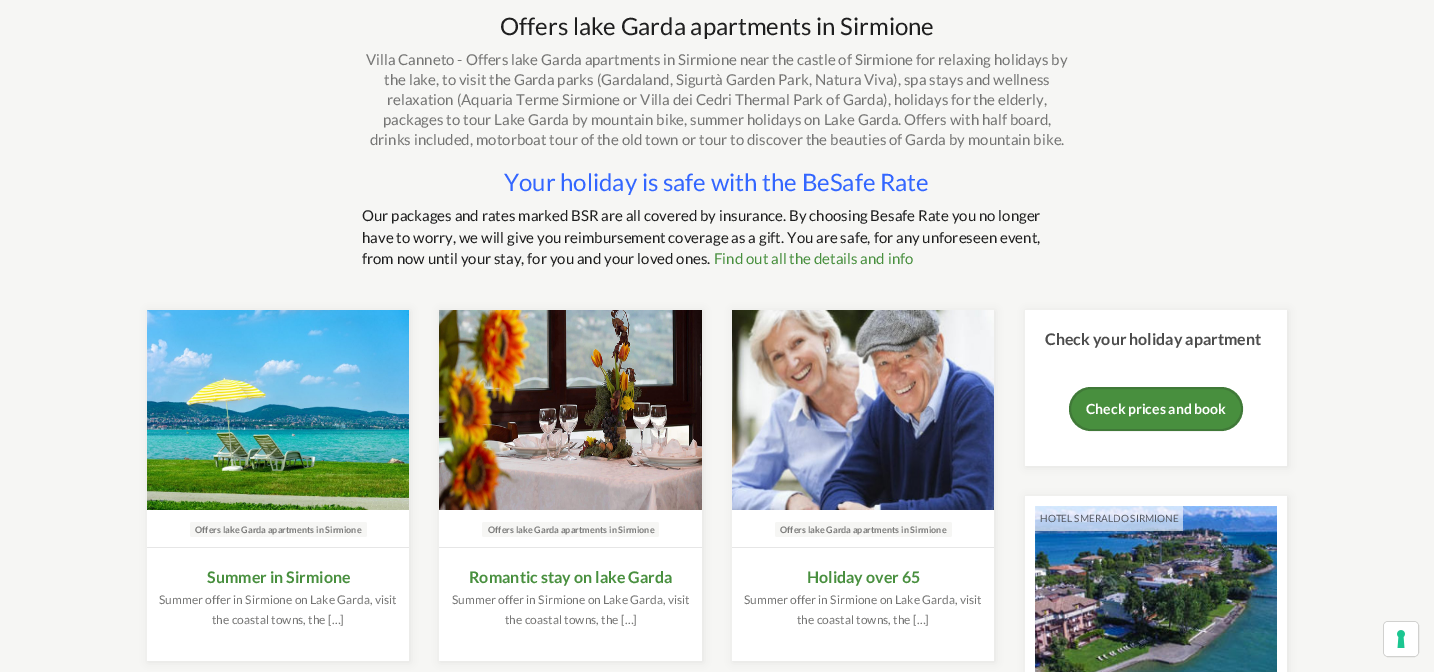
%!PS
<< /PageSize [1434 672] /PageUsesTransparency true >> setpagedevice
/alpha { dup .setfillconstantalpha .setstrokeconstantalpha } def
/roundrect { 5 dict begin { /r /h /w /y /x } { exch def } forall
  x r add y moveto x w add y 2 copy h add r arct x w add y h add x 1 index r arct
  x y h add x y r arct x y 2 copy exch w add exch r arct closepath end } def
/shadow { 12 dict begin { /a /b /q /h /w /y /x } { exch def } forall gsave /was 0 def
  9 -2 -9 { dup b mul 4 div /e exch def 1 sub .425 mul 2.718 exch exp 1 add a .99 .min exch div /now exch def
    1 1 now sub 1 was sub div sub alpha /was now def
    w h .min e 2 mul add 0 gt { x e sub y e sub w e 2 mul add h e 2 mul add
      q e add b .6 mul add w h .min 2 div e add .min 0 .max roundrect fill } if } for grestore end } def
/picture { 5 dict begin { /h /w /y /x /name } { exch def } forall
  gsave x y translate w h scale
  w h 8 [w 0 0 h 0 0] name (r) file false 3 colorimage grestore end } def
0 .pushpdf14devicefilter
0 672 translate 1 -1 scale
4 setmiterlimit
0.965 0.965 0.957 setrgbcolor
0 0 1434 672 rectfill
/Lato-Regular [24 0 0 -24 0 0] selectfont
0.122 setgray
500 35 moveto (Offers lake Garda apartments in Sirmione) show
/Lato-Regular [15 0 0 -15 0 0] selectfont
0.459 0.459 0.455 setrgbcolor
366 65 moveto (Villa Canneto - Offers lake Garda apartments in Sirmione near the castle of Sirmione for relaxing holidays by) show
384 85 moveto (the lake, to visit the Garda parks \(Gardaland, Sigurtà Garden Park, Natura Viva\), spa stays and wellness) show
387 105 moveto (relaxation \(Aquaria Terme Sirmione or Villa dei Cedri Thermal Park of Garda\), holidays for the elderly,) show
383 125 moveto (packages to tour Lake Garda by mountain bike, summer holidays on Lake Garda. Offers with half board,) show
370 145 moveto (drinks included, motorboat tour of the old town or tour to discover the beauties of Garda by mountain bike.) show
/Lato-Regular [24 0 0 -24 0 0] selectfont
0.2 0.4 1 setrgbcolor
504 191 moveto (Your holiday is safe with the BeSafe Rate) show
/Lato-Regular [15 0 0 -15 0 0] selectfont
0.122 setgray
362 221 moveto (Our packages and rates marked BSR are all covered by insurance. By choosing Besafe Rate you no longer) show
362 243 moveto (have to worry, we will give you reimbursement coverage as a gift. You are safe, for any unforeseen event,) show
362 264 moveto (from now until your stay, for you and your loved ones.) show
0.282 0.561 0.243 setrgbcolor
714 264 moveto (Find out all the details and info) show
0 setgray
1026 311 262 156 0 4 0.07 shadow
1 setgray
1025 310 262 156 rectfill
/Lato-Bold [16 0 0 -16 0 0] selectfont
0.298 setgray
1045 345 moveto (Check your holiday apartment) show
0.282 0.561 0.243 setrgbcolor
1069 387 174 44 22 roundrect fill
0.2 alpha
0.122 setgray
2 setlinewidth
1070 388 172 42 21 roundrect stroke
/Lato-Bold [14 0 0 -14 0 0] selectfont
1 alpha
1 setgray
1086 414 moveto (Check prices and book) show
0 setgray
1026 497 262 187 0 4 0.07 shadow
1 setgray
1025 496 262 176 rectfill
(img1.rgb) 1035 506 242 166 picture
0.6 alpha
1035 506 148 25 rectfill
/Lato-Regular [10 0 0 -10 0 0] selectfont
1 alpha
0.325 0.345 0.384 setrgbcolor
1040 522 moveto (HOTEL SMERALDO SIRMIONE) show
0 setgray
148 311 262 351 0 4 0.07 shadow
1 setgray
147 510 262 151 rectfill
(img2.rgb) 147 310 262 200 picture
0.902 setgray
147 547 262 1 rectfill
0.965 0.965 0.957 setrgbcolor
190 522 177 15 2 roundrect fill
/Lato-Bold [9 0 0 -9 0 0] selectfont
0.482 0.482 0.478 setrgbcolor
195 533 moveto (Offers lake Garda apartments in Sirmione) show
/Lato-Bold [16 0 0 -16 0 0] selectfont
0.282 0.561 0.243 setrgbcolor
207 583 moveto (Summer in Sirmione) show
/Lato-Regular [12 0 0 -12 0 0] selectfont
0.459 0.459 0.455 setrgbcolor
159 604 moveto (Summer offer in Sirmione on Lake Garda, visit) show
212 624 moveto (the coastal towns, the […]) show
0 setgray
440 311 263 351 0 4 0.07 shadow
1 setgray
439 510 263 151 rectfill
(img3.rgb) 439 310 263 200 picture
0.902 setgray
439 547 263 1 rectfill
0.965 0.965 0.957 setrgbcolor
482 522 177 15 2 roundrect fill
/Lato-Bold [9 0 0 -9 0 0] selectfont
0.482 0.482 0.478 setrgbcolor
488 533 moveto (Offers lake Garda apartments in Sirmione) show
/Lato-Bold [16 0 0 -16 0 0] selectfont
0.282 0.561 0.243 setrgbcolor
469 583 moveto (Romantic stay on lake Garda) show
/Lato-Regular [12 0 0 -12 0 0] selectfont
0.459 0.459 0.455 setrgbcolor
452 604 moveto (Summer offer in Sirmione on Lake Garda, visit) show
505 624 moveto (the coastal towns, the […]) show
0 setgray
733 311 262 351 0 4 0.07 shadow
1 setgray
732 510 262 151 rectfill
(img4.rgb) 732 310 262 200 picture
0.902 setgray
732 547 262 1 rectfill
0.965 0.965 0.957 setrgbcolor
775 522 177 15 2 roundrect fill
/Lato-Bold [9 0 0 -9 0 0] selectfont
0.482 0.482 0.478 setrgbcolor
780 533 moveto (Offers lake Garda apartments in Sirmione) show
/Lato-Bold [16 0 0 -16 0 0] selectfont
0.282 0.561 0.243 setrgbcolor
807 583 moveto (Holiday over 65) show
/Lato-Regular [12 0 0 -12 0 0] selectfont
0.459 0.459 0.455 setrgbcolor
744 604 moveto (Summer offer in Sirmione on Lake Garda, visit) show
797 624 moveto (the coastal towns, the […]) show
0.82 0.82 0.812 setrgbcolor
1 setlinewidth
1383.5 621.5 35 35 4.5 roundrect stroke
1 setgray
1384 622 34 34 4 roundrect fill
(img5.rgb) 1397 630 8 18 picture
.poppdf14devicefilter showpage
